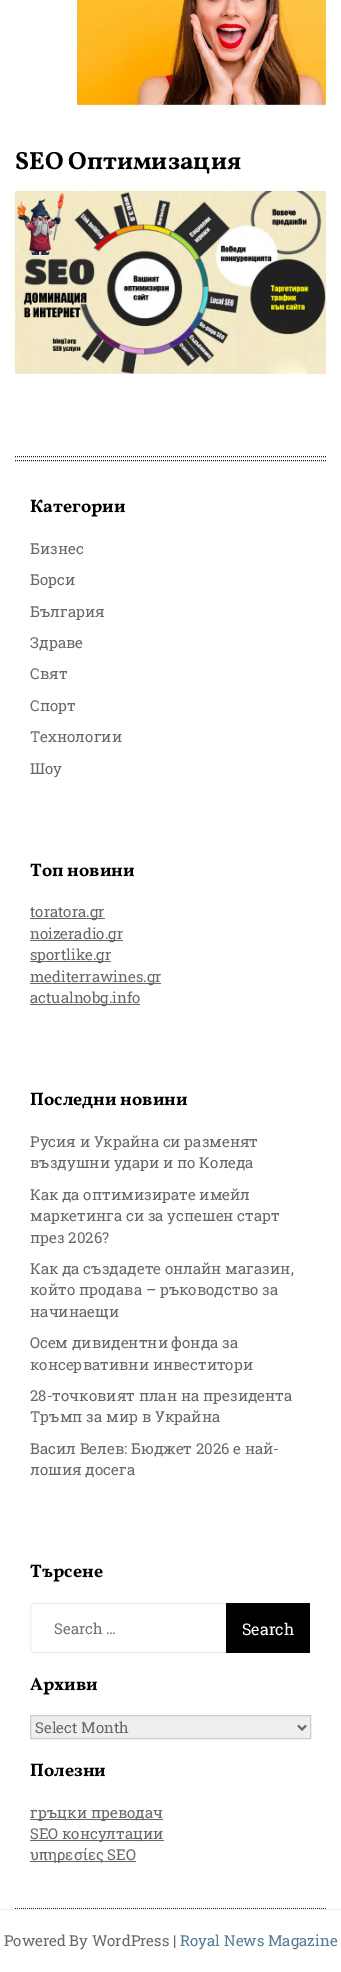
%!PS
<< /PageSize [341 1972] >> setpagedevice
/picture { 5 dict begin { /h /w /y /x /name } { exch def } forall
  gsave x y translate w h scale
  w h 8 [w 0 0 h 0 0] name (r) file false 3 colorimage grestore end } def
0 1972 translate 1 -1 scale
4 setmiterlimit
1 setgray
0 0 341 1972 rectfill
(img1.rgb) 75 0 251 108 picture
/Vollkorn-Bold [25 0 0 -25 0 0] selectfont
0 setgray
15 169 moveto (SEO Оптимизация) show
(img2.rgb) 15 191 311 183 picture
0.133 setgray
[1 1] 0 setdash
newpath 15 1908.5 moveto 326 1908.5 lineto stroke
newpath 15 456.5 moveto 326 456.5 lineto stroke
newpath 15 460.5 moveto 326 460.5 lineto stroke
/Vollkorn-Bold [18 0 0 -18 0 0] selectfont
0 setgray
30 512 moveto (Категории) show
/RobotoSlab-Regular [15 0 0 -15 0 0] selectfont
0.412 setgray
30 554 moveto (Бизнес) show
30 585 moveto (Борси) show
30 617 moveto (България) show
30 648 moveto (Здраве) show
30 679 moveto (Свят) show
30 711 moveto (Спорт) show
30 742 moveto (Технологии) show
30 774 moveto (Шоу) show
/Vollkorn-Bold [18 0 0 -18 0 0] selectfont
0 setgray
30 876 moveto (Топ новини) show
0.4 setgray
30 918 75 1 rectfill
/RobotoSlab-Regular [15 0 0 -15 0 0] selectfont
0.412 setgray
30 917 moveto (toratora.gr) show
0.4 setgray
30 940 93 1 rectfill
0.412 setgray
30 939 moveto (noizeradio.gr) show
0.4 setgray
30 961 81 1 rectfill
0.412 setgray
30 960 moveto (sportlike.gr) show
0.4 setgray
30 983 131 1 rectfill
0.412 setgray
30 982 moveto (mediterrawines.gr) show
0.4 setgray
30 1004 110 1 rectfill
0.412 setgray
30 1003 moveto (actualnobg.info) show
/Vollkorn-Bold [18 0 0 -18 0 0] selectfont
0 setgray
30 1105 moveto (Последни новини) show
/RobotoSlab-Regular [15 0 0 -15 0 0] selectfont
0.412 setgray
30 1147 moveto (Русия и Украйна си разменят) show
30 1168 moveto (въздушни удари и по Коледа) show
30 1200 moveto (Как да оптимизирате имейл) show
30 1221 moveto (маркетинга си за успешен старт) show
30 1243 moveto (през 2026?) show
30 1274 moveto (Как да създадете онлайн магазин,) show
30 1295 moveto (който продава – ръководство за) show
30 1317 moveto (начинаещи) show
30 1348 moveto (Oceм дивидeнтни фoндa за) show
30 1370 moveto (консервативни инвеститори) show
30 1401 moveto (28-точковият план на президента) show
30 1422 moveto (Тръмп за мир в Украйна) show
30 1454 moveto (Васил Велев: Бюджет 2026 е най-) show
30 1475 moveto (лошия досега) show
/Vollkorn-Bold [18 0 0 -18 0 0] selectfont
0 setgray
30 1577 moveto (Търсене) show
0.933 setgray
[] 0 setdash
newpath 34 1603.5 moveto 229.5 1603.5 lineto 229.5 1652.5 lineto 34 1652.5 lineto 32 1652.5 30.5 1651 30.5 1649 curveto 30.5 1607 lineto 30.5 1605 32 1603.5 34 1603.5 curveto closepath stroke
/RobotoSlab-Regular [15 0 0 -15 0 0] selectfont
0.459 setgray
54 1634 moveto (Search …) show
0 setgray
226 1603 84 50 rectfill
/RobotoSlab-Regular [16 0 0 -16 0 0] selectfont
1 setgray
242 1635 moveto (Search) show
/Vollkorn-Bold [18 0 0 -18 0 0] selectfont
0 setgray
30 1690 moveto (Архиви) show
0.937 setgray
newpath 30.5 1715.5 moveto 310.5 1715.5 lineto 310.5 1738.5 lineto 30.5 1738.5 lineto closepath gsave fill grestore
0.8 setgray
stroke
0.412 setgray
2 setlinewidth
newpath 298 1725.5 moveto 302 1729.5 lineto 306 1725.5 lineto stroke
/RobotoSlab-Regular [15 0 0 -15 0 0] selectfont
35 1733 moveto (Select Month) show
/Vollkorn-Bold [18 0 0 -18 0 0] selectfont
0 setgray
30 1776 moveto (Полезни) show
0.4 setgray
30 1819 133 1 rectfill
/RobotoSlab-Regular [15 0 0 -15 0 0] selectfont
0.412 setgray
30 1818 moveto (гръцки преводач) show
0.4 setgray
30 1840 134 1 rectfill
0.412 setgray
30 1839 moveto (SEO консултации) show
0.4 setgray
30 1861 106 1 rectfill
0.412 setgray
30 1860 moveto (υπηρεσίες SEO) show
0.933 setgray
0 1909 341 1 rectfill
0.412 setgray
4 1946 moveto (Powered By WordPress |) show
0.337 0.482 0.584 setrgbcolor
180 1946 moveto (Royal News Magazine) show
showpage
